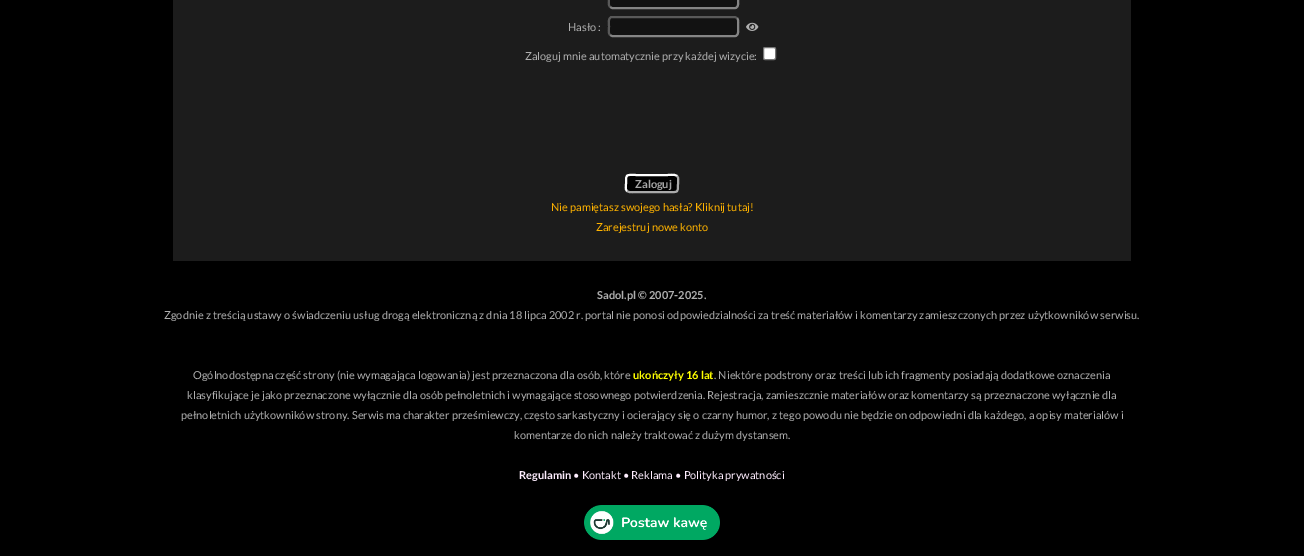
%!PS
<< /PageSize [1304 556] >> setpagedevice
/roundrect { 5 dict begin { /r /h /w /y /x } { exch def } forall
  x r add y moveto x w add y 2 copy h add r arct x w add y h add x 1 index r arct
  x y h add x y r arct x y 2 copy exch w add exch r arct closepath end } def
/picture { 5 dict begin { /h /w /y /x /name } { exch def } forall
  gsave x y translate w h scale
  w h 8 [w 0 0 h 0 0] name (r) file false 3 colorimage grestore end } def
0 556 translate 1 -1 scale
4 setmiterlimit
0 setgray
0 0 1304 556 rectfill
0.11 setgray
173 0 958 261 rectfill
0.071 setgray
608 -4 131 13 4 roundrect fill
0.522 setgray
2 setlinewidth
newpath 737 -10 moveto 739 -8 738 -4 738 -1.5 curveto 738 1 739.5 7 735.5 8 curveto 612 8 lineto 610 7 lineto stroke
0.349 setgray
newpath 610 7 moveto 608 5 609 1 609 -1.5 curveto 609 -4 607.5 -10 611.5 -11 curveto 735 -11 lineto 737 -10 lineto stroke
/Lato-Regular [11 0 0 -11 0 0] selectfont
0.686 setgray
568 31 moveto (Hasło :) show
0.071 setgray
608 16 131 21 4 roundrect fill
0.522 setgray
newpath 737 18 moveto 739 20 738 24 738 26.5 curveto 738 29 739.5 35 735.5 36 curveto 612 36 lineto 610 35 lineto stroke
0.349 setgray
newpath 610 35 moveto 608 33 609 29 609 26.5 curveto 609 24 607.5 18 611.5 17 curveto 735 17 lineto 737 18 lineto stroke
(img1.rgb) 746 22 13 9 picture
0.686 setgray
525 60 moveto (Zaloguj mnie automatycznie przy każdej wizycie:) show
1 setgray
763.5 47.5 12 12 1.5 roundrect gsave fill grestore
0.463 setgray
1 setlinewidth
stroke
0 setgray
625 174 54 19 4 roundrect fill
0.667 setgray
2 setlinewidth
newpath 677 176 moveto 679 177.5 678 181.5 678 183.5 curveto 678 193.5 678 192 667.5 192 curveto 636.5 192 lineto 636 192 629 193 627 191 curveto stroke
1 setgray
newpath 627 191 moveto 625 189.5 626 185.5 626 183.5 curveto 626 173.5 626 175 636.5 175 curveto 667.5 175 lineto 668 175 675 174 677 176 curveto stroke
/Lato-Bold [11 0 0 -11 0 0] selectfont
0.651 setgray
635 188 moveto (Zaloguj) show
/Lato-Regular [11 0 0 -11 0 0] selectfont
1 0.702 0 setrgbcolor
551 211 moveto (Nie pamiętasz swojego hasła? Kliknij tutaj!) show
596 231 moveto (Zarejestruj nowe konto) show
/Lato-Bold [11 0 0 -11 0 0] selectfont
0.686 setgray
597 299 moveto (Sadol.pl © 2007-2025.) show
/Lato-Regular [11 0 0 -11 0 0] selectfont
164 319 moveto (Zgodnie z treścią ustawy o świadczeniu usług drogą elektroniczną z dnia 18 lipca 2002 r. portal nie ponosi odpowiedzialności za treść materiałów i komentarzy zamieszczonych przez użytkowników serwisu.) show
193 379 moveto (Ogólnodostępna część strony \(nie wymagająca logowania\) jest przeznaczona dla osób, które) show
/Lato-Bold [11 0 0 -11 0 0] selectfont
1 1 0 setrgbcolor
633 379 moveto (ukończyły 16 lat) show
/Lato-Regular [11 0 0 -11 0 0] selectfont
0.686 setgray
714 379 moveto (. Niektóre podstrony oraz treści lub ich fragmenty posiadają dodatkowe oznaczenia) show
187 399 moveto (klasyfikujące je jako przeznaczone wyłącznie dla osób pełnoletnich i wymagające stosownego potwierdzenia. Rejestracja, zamieszcznie materiałów oraz komentarzy są przeznaczone wyłącznie dla) show
181 419 moveto (pełnoletnich użytkowników strony. Serwis ma charakter prześmiewczy, często sarkastyczny i ocierający się o czarny humor, z tego powodu nie będzie on odpowiedni dla każdego, a opisy materialów i) show
514 439 moveto (komentarze do nich należy traktować z dużym dystansem.) show
/Lato-Bold [11 0 0 -11 0 0] selectfont
1 0.933 1 setrgbcolor
519 479 moveto (Regulamin) show
/Lato-Regular [11 0 0 -11 0 0] selectfont
573 479 moveto (• Kontakt • Reklama • Polityka prywatności) show
(img2.rgb) 584 505 136 35 picture
showpage
